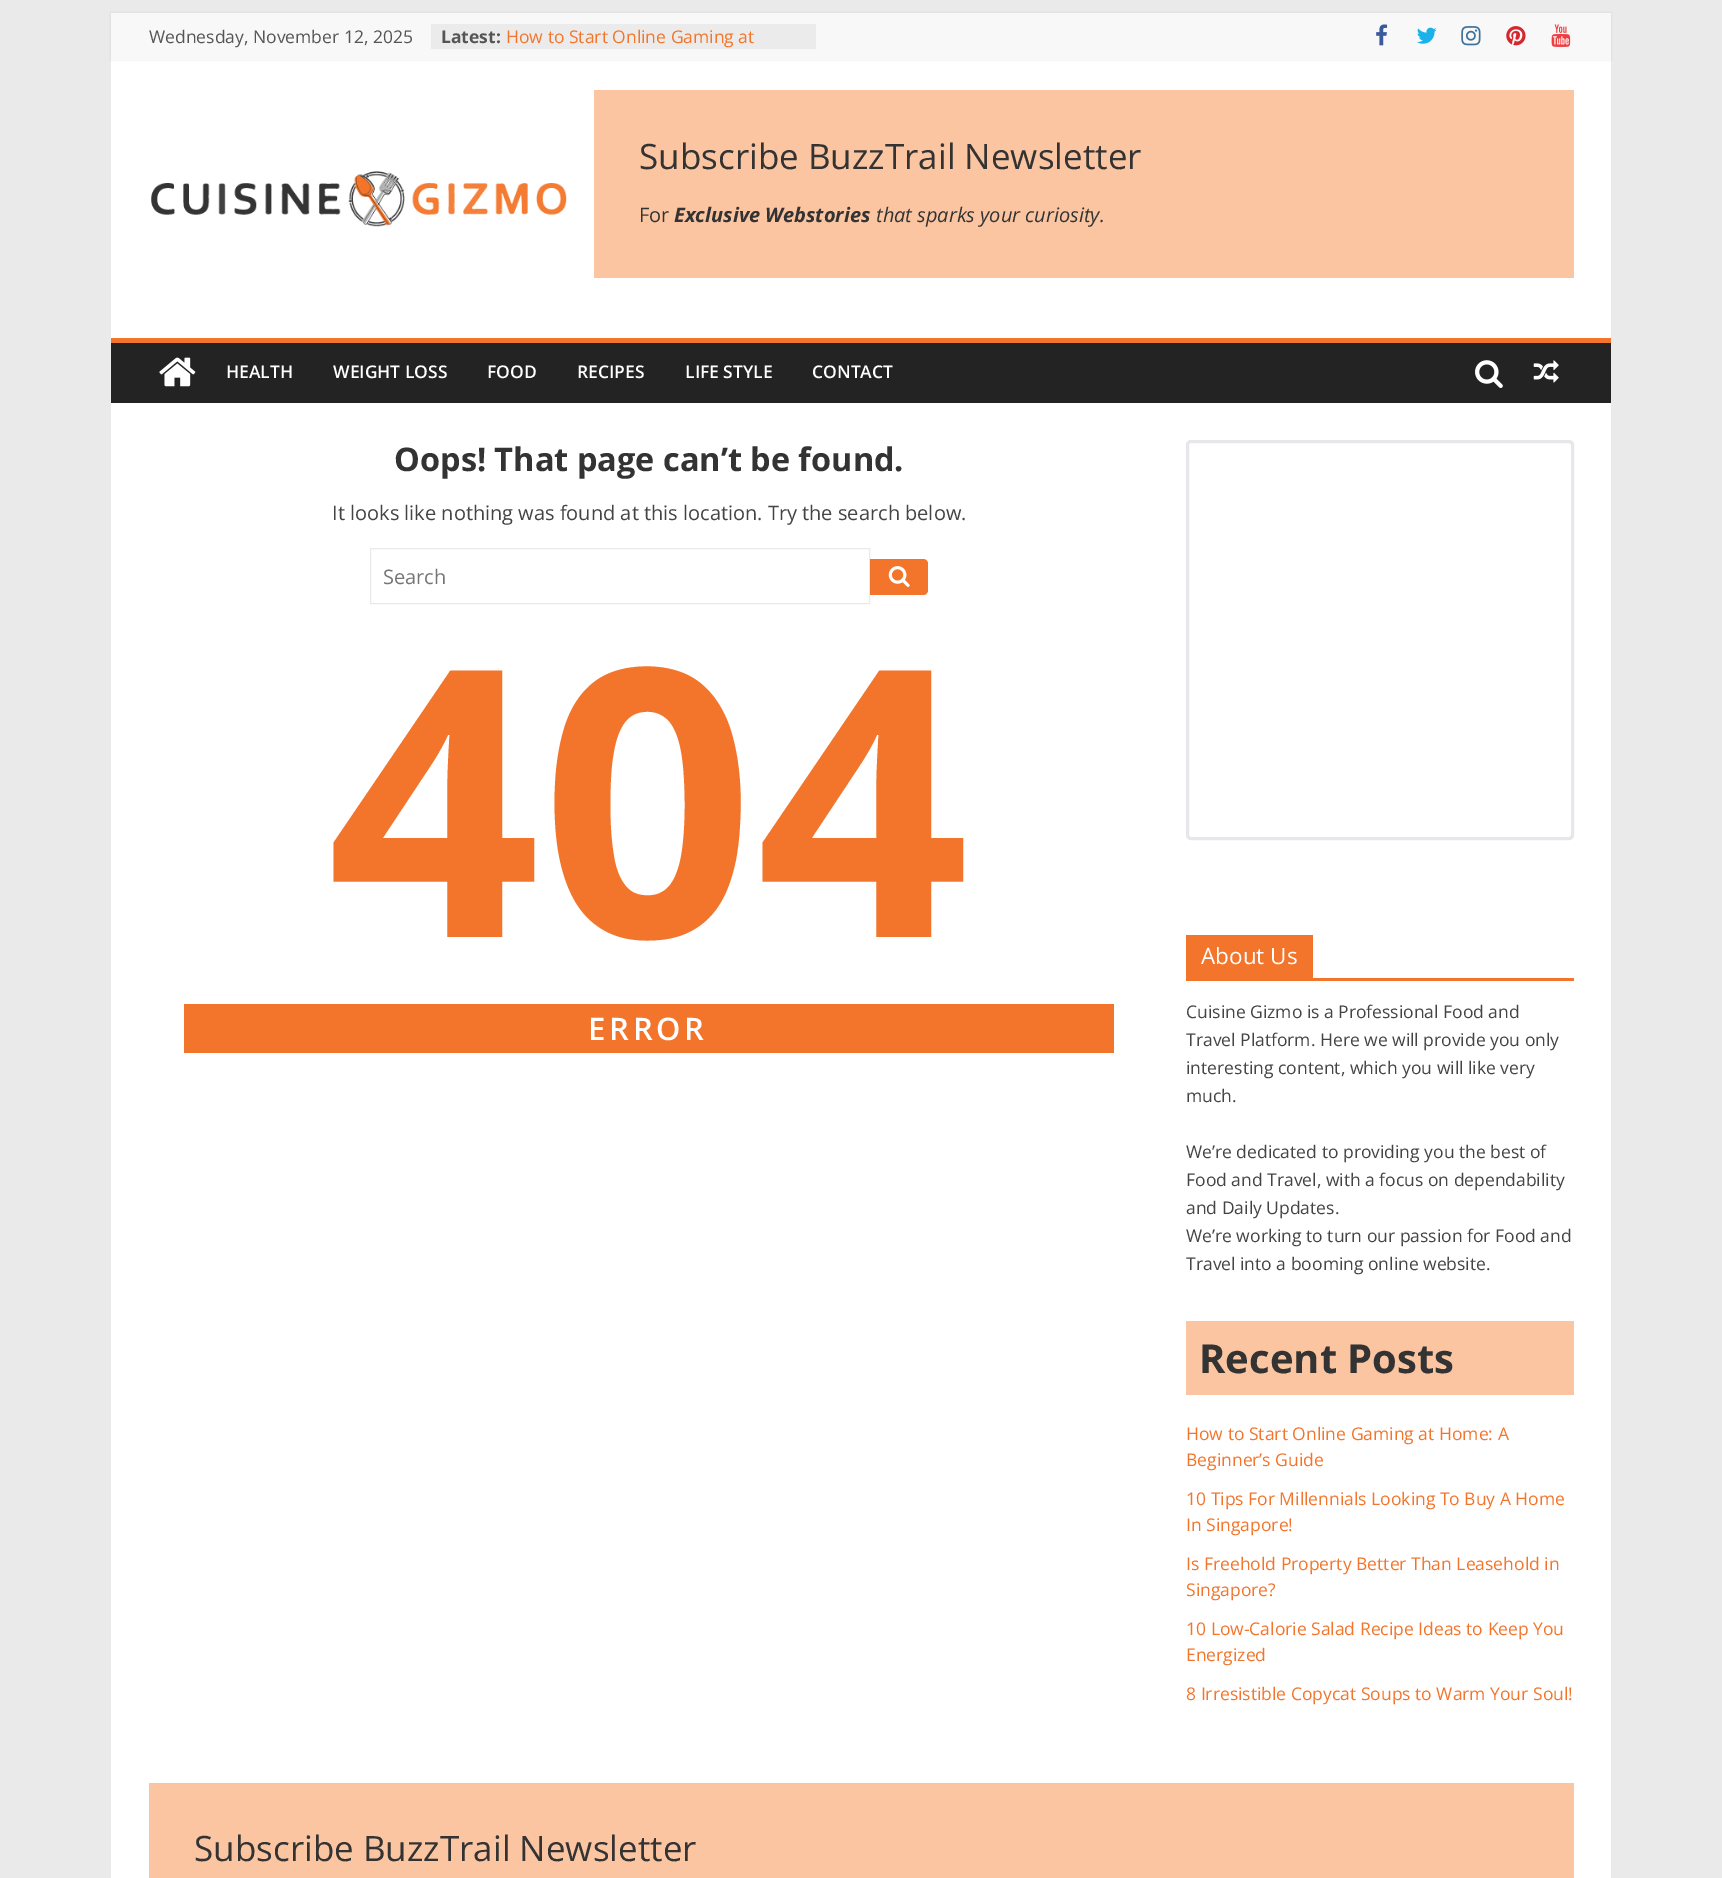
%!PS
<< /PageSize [1722 1878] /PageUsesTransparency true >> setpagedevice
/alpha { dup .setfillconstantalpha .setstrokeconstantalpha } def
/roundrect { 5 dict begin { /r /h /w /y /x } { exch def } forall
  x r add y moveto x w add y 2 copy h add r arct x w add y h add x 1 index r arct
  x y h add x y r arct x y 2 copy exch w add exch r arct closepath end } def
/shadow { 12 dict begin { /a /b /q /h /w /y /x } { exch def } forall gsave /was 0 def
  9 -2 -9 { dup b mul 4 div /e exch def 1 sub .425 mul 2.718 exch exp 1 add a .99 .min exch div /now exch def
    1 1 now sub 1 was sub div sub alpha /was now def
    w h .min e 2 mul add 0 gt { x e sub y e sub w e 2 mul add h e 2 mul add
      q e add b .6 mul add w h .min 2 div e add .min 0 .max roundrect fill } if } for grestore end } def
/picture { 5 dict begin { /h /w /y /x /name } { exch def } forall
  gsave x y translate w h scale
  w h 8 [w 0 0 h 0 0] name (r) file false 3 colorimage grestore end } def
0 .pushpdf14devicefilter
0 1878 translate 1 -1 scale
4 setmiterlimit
0.918 setgray
0 0 1722 1878 rectfill
1 setgray
111 60 1500 278 rectfill
0 setgray
111 13 1500 47 0 1 0.1 shadow
0.973 setgray
111 13 1500 47 rectfill
/OpenSans-Regular [17.5 0 0 -17.5 0 0] selectfont
0.333 setgray
149 43 moveto (Wednesday, November 12, 2025) show
0.922 0.922 0.925 setrgbcolor
431 24 385 25 rectfill
/OpenSans-Bold [17.5 0 0 -17.5 0 0] selectfont
0.333 setgray
441 43 moveto (Latest:) show
/OpenSans-Regular [17.5 0 0 -17.5 0 0] selectfont
0.949 0.459 0.169 setrgbcolor
506 43 moveto (How to Start Online Gaming at) show
(img1.rgb) 1376 24 12 22 picture
(img2.rgb) 1417 27 20 17 picture
(img3.rgb) 1461 26 20 20 picture
(img4.rgb) 1506 26 20 20 picture
(img5.rgb) 1551 24 20 23 picture
(img6.rgb) 151 171 416 56 picture
0.988 0.773 0.631 setrgbcolor
594 90 980 188 rectfill
/OpenSans-Regular [35 0 0 -35 0 0] selectfont
0.2 setgray
639 169 moveto (Subscribe BuzzTrail Newsletter) show
/OpenSans-Regular [20 0 0 -20 0 0] selectfont
639 222 moveto (For) show
/OpenSans-BoldItalic [20 0 0 -20 0 0] selectfont
674 222 moveto (Exclusive Webstories) show
/OpenSans-Italic [20 0 0 -20 0 0] selectfont
876 222 moveto (that sparks your curiosity.) show
0.137 setgray
111 343 1500 60 rectfill
0.949 0.459 0.169 setrgbcolor
111 338 1500 5 rectfill
(img7.rgb) 159 357 37 30 picture
/OpenSans-SemiBold [17.5 0 0 -17.5 0 0] selectfont
1 setgray
226 378 moveto (HEALTH) show
333 378 moveto (WEIGHT LOSS) show
487 378 moveto (FOOD) show
577 378 moveto (RECIPES) show
685 378 moveto (LIFE STYLE) show
812 378 moveto (CONTACT) show
(img8.rgb) 1475 360 28 28 picture
(img9.rgb) 1533 360 26 23 picture
111 403 1500 1475 rectfill
/OpenSans-Bold [32.5 0 0 -32.5 0 0] selectfont
0.2 setgray
394 471 moveto (Oops! That page can’t be found.) show
/OpenSans-Regular [20 0 0 -20 0 0] selectfont
0.267 setgray
332 520 moveto (It looks like nothing was found at this location. Try the search below.) show
0.918 setgray
370.5 548.5 499 55 rectstroke
0.459 setgray
383 584 moveto (Search) show
0.949 0.459 0.169 setrgbcolor
newpath 870 559 moveto 923 559 lineto 926 559 928 561 928 564 curveto 928 590 lineto 928 593 926 595 923 595 curveto 870 595 lineto closepath fill
(img10.rgb) 888 566 22 21 picture
/OpenSans-Bold [375 0 0 -375 0 0] selectfont
327 937 moveto (404) show
184 1004 930 49 rectfill
/OpenSans-SemiBold [31 0 0 -31 0 0] selectfont
1 setgray
588 1040 moveto 3.75 0 (ERROR) ashow
0.898 0.906 0.922 setrgbcolor
3 setlinewidth
1187.5 441.5 385 397 3.5 roundrect stroke
0.949 0.459 0.169 setrgbcolor
1186 978 388 3 rectfill
1186 935 127 43 rectfill
/OpenSans-Regular [22.5 0 0 -22.5 0 0] selectfont
1 setgray
1201 964 moveto (About Us) show
/OpenSans-Regular [17.5 0 0 -17.5 0 0] selectfont
0.267 setgray
1186 1018 moveto (Cuisine Gizmo is a Professional Food and) show
1186 1046 moveto (Travel Platform. Here we will provide you only) show
1186 1074 moveto (interesting content, which you will like very) show
1186 1102 moveto (much.) show
1186 1158 moveto (We’re dedicated to providing you the best of) show
1186 1186 moveto (Food and Travel, with a focus on dependability) show
1186 1214 moveto (and Daily Updates.) show
1186 1242 moveto (We’re working to turn our passion for Food and) show
1186 1270 moveto (Travel into a booming online website.) show
0.988 0.773 0.631 setrgbcolor
1186 1321 388 74 rectfill
/OpenSans-Bold [40 0 0 -40 0 0] selectfont
0.2 setgray
1199 1373 moveto (Recent Posts) show
/OpenSans-Regular [17.5 0 0 -17.5 0 0] selectfont
0.949 0.459 0.169 setrgbcolor
1186 1440 moveto (How to Start Online Gaming at Home: A) show
1186 1466 moveto (Beginner’s Guide) show
1186 1505 moveto (10 Tips For Millennials Looking To Buy A Home) show
1186 1531 moveto (In Singapore!) show
1186 1570 moveto (Is Freehold Property Better Than Leasehold in) show
1186 1596 moveto (Singapore?) show
1186 1635 moveto (10 Low-Calorie Salad Recipe Ideas to Keep You) show
1186 1661 moveto (Energized) show
1186 1700 moveto (8 Irresistible Copycat Soups to Warm Your Soul!) show
0.988 0.773 0.631 setrgbcolor
149 1783 1425 95 rectfill
/OpenSans-Regular [35 0 0 -35 0 0] selectfont
0.2 setgray
194 1861 moveto (Subscribe BuzzTrail Newsletter) show
.poppdf14devicefilter showpage
